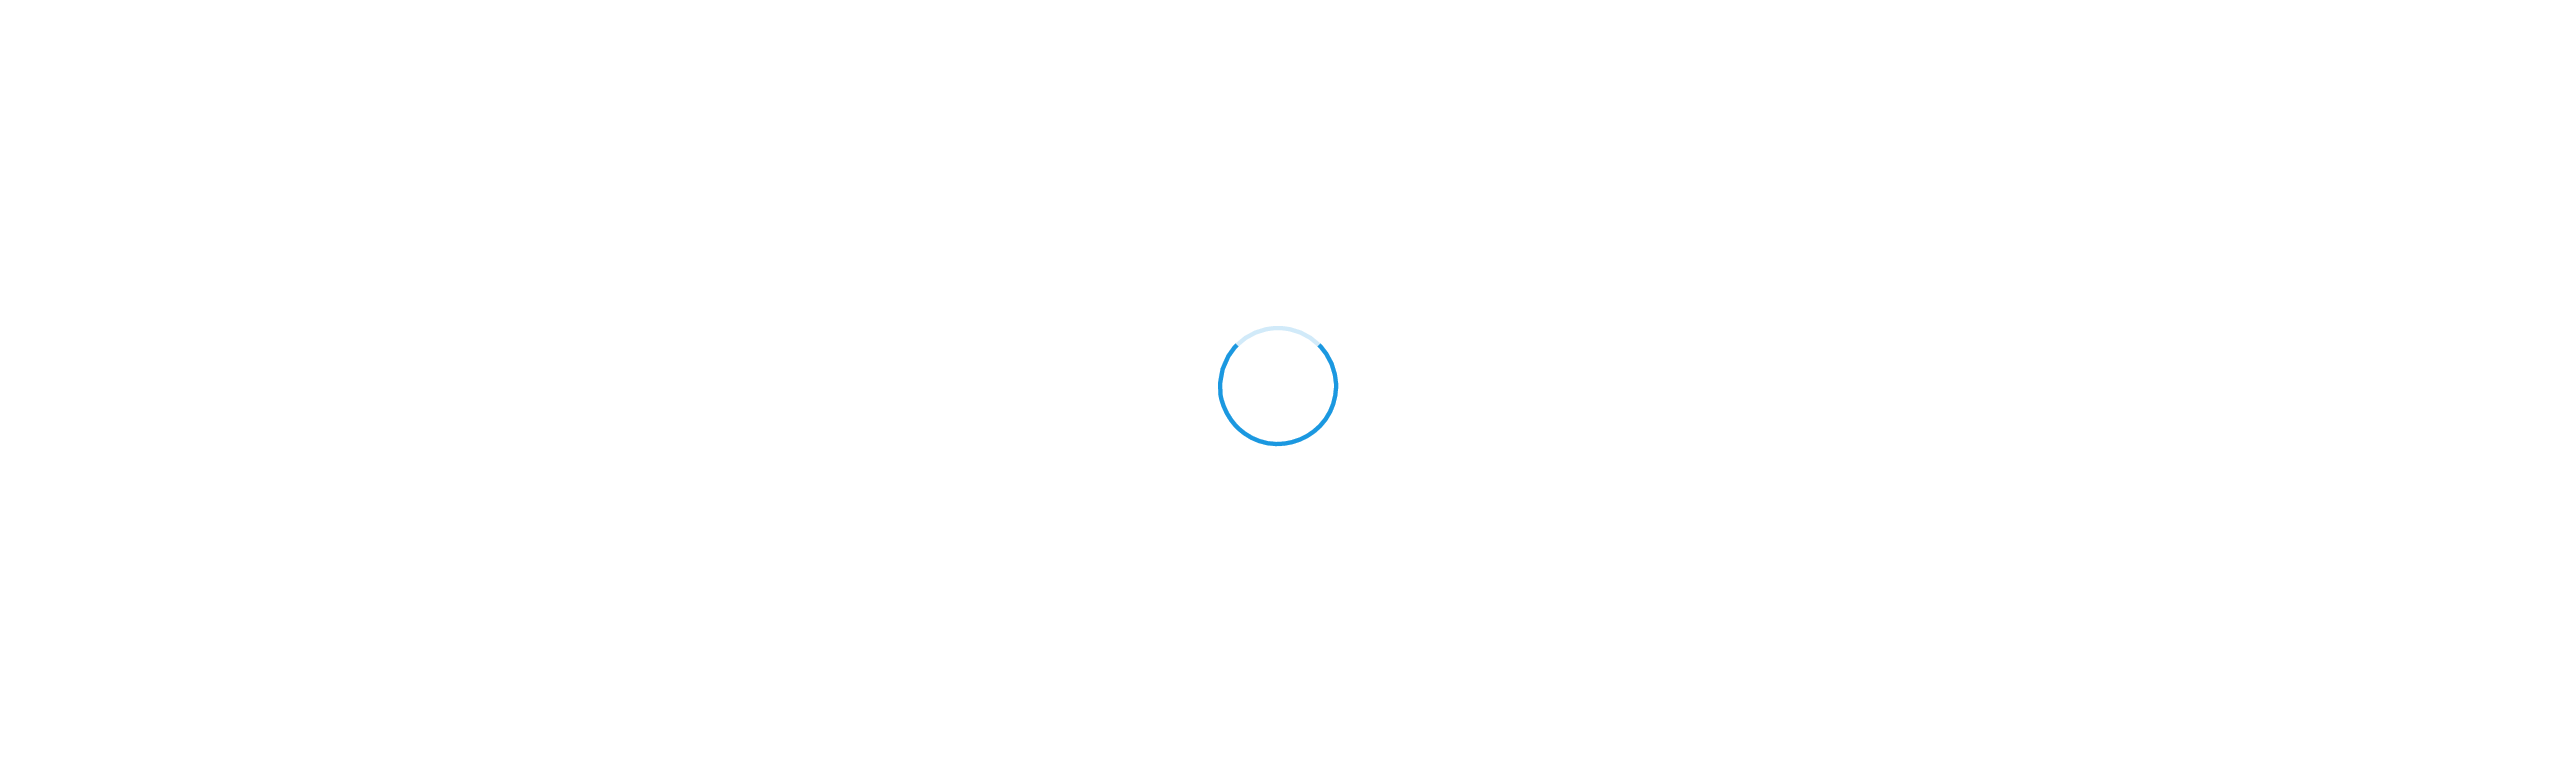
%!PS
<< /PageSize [2555 771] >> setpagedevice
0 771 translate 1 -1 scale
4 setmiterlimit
1 setgray
0 0 2555 771 rectfill
0.82 0.918 0.976 setrgbcolor
4 setlinewidth
newpath 1278 386 58 0 360 arc closepath stroke
0.106 0.596 0.878 setrgbcolor
newpath 1319 345 moveto 1330 356 1336 370.5 1336 386 curveto 1336 437.5 1273 463.5 1237 427 curveto 1229 419 1223.5 408.5 1221 397.5 curveto 1217.5 378.5 1223.5 358.5 1237 345 curveto stroke
showpage
